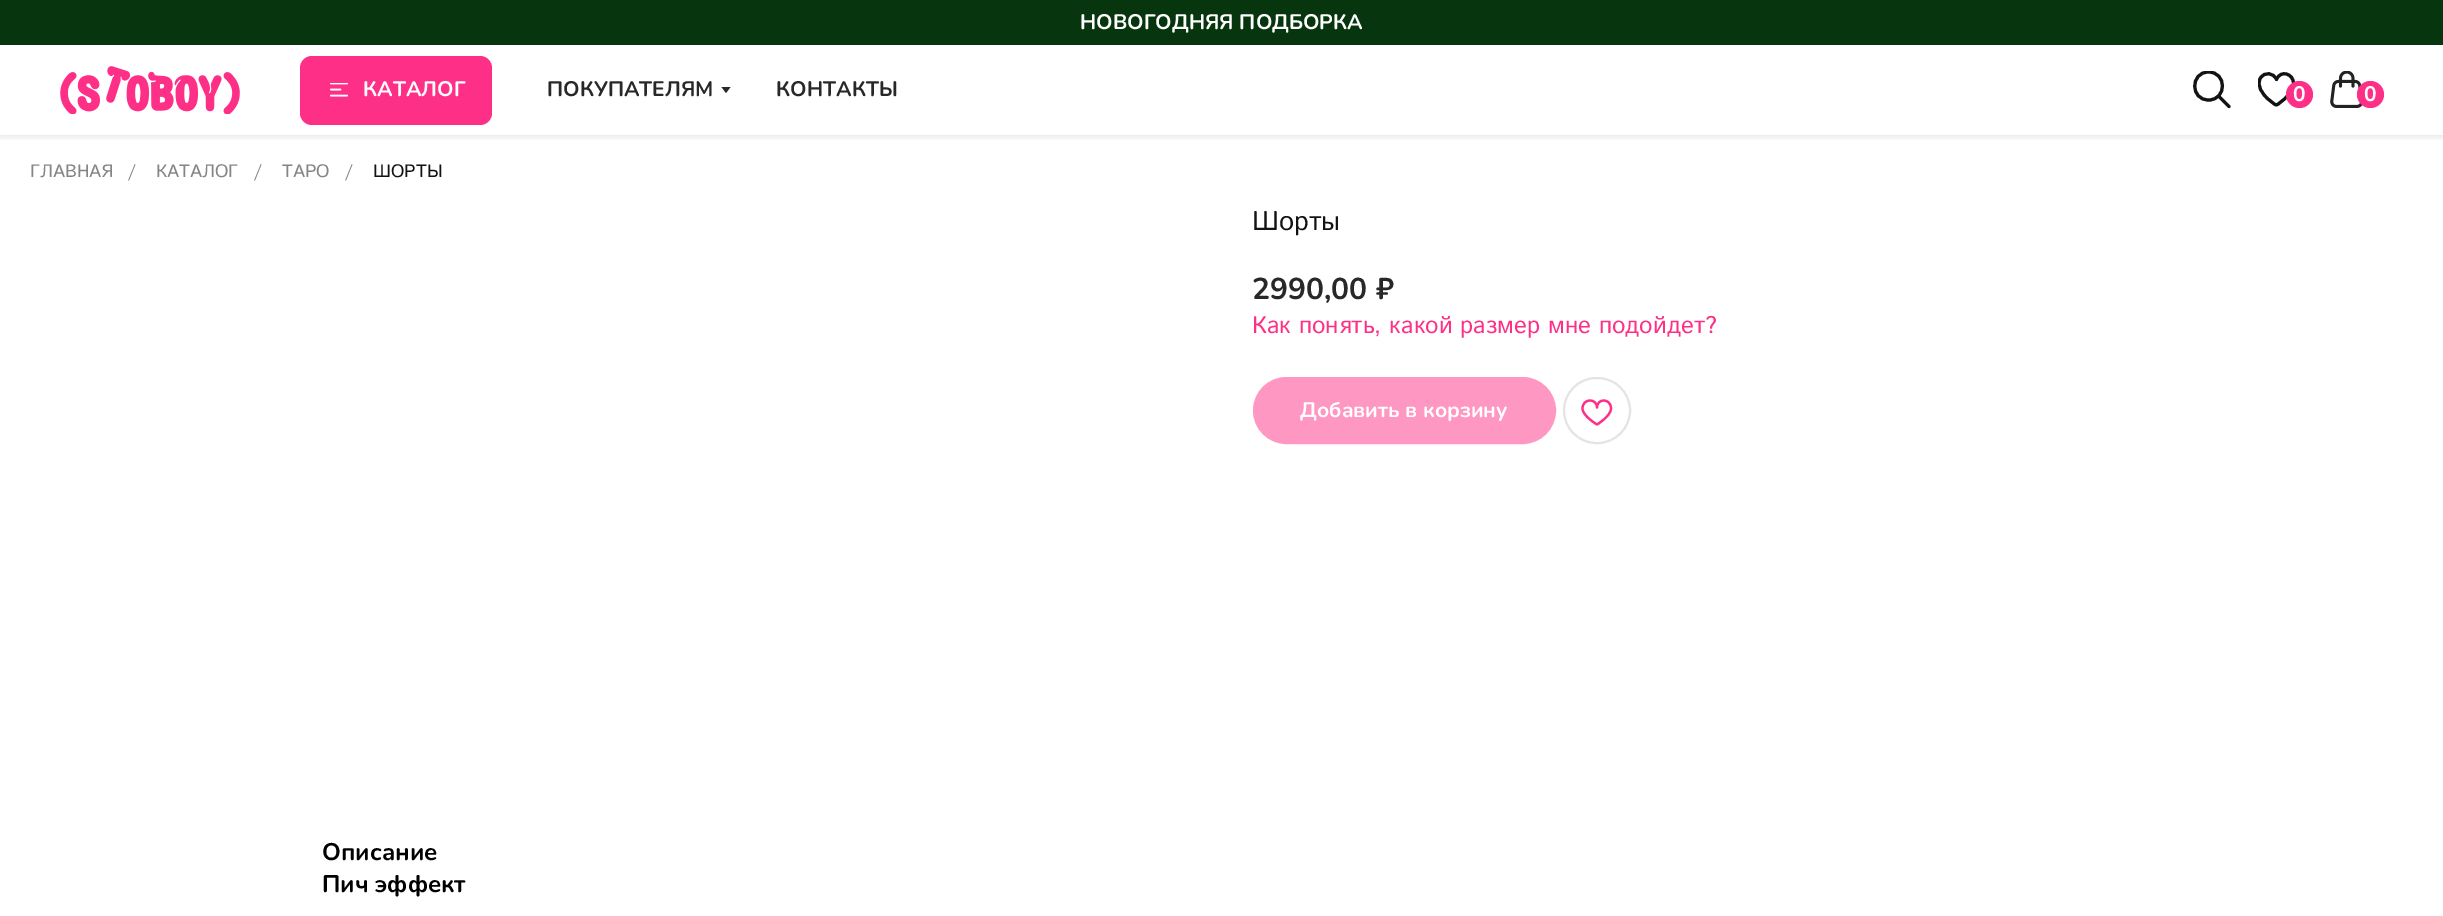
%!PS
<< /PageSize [2443 916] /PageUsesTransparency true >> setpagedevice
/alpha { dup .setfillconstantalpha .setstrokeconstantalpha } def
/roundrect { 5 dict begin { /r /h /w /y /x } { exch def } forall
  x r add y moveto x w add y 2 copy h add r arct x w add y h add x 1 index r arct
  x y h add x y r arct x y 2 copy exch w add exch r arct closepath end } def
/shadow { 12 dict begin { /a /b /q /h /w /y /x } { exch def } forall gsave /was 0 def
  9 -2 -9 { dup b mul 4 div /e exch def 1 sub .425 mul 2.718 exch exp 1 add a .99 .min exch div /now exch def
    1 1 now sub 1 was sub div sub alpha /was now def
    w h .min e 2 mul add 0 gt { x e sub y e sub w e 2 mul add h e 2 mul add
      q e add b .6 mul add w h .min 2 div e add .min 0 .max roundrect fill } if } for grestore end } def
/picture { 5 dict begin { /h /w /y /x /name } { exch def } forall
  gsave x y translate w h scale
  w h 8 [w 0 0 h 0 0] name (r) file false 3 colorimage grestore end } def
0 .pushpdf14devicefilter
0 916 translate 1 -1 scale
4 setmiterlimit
1 setgray
0 0 2443 916 rectfill
gsave
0 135 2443 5 rectclip
0 setgray
0 47 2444 90 0 4 0.1 shadow
grestore
0.027 0.208 0.055 setrgbcolor
0 0 2443 45 rectfill
/Nunito-Bold [21 0 0 -21 0 0] selectfont
1 setgray
1080 29 moveto (НОВОГОДНЯЯ ПОДБОРКА) show
(img1.rgb) 60 66 180 48 picture
0.996 0.184 0.525 setrgbcolor
300 56 192 69 12 roundrect fill
gsave
2193 71 38 37 rectclip
0.075 setgray
3.1 setlinewidth
newpath 2208.5 72 moveto 2190 72 2190 100.5 2209 100 curveto 2227 99.5 2227 72 2208.5 72 curveto closepath stroke
grestore
0.075 setgray
3.1 setlinewidth
1 setlinecap
newpath 2219.5 97 moveto 2229 106.5 lineto stroke
gsave
2258 71 37 37 rectclip
1 setlinejoin
newpath 2293.5 83.5 moveto 2293.5 89.5 2288.5 95 2284.5 99 curveto 2279.5 103 lineto 2276.5 105.5 2276 105.5 2273 103 curveto 2268 99 lineto 2262.5 94 2256 85.5 2260.5 78 curveto 2264.5 71.5 2273.5 72.5 2276.5 79.5 curveto 2280.5 69.5 2293.5 73.5 2293.5 83.5 curveto closepath stroke
grestore
(img2.rgb) 2330 71 33 37 picture
(img3.rgb) 330 83 18 14 picture
1 setgray
363 96 moveto (КАТАЛОГ) show
0.157 setgray
547 96 moveto (ПОКУПАТЕЛЯМ) show
newpath 721.5 87 moveto 730.5 87 lineto 726 93 lineto closepath fill
776 96 moveto (КОНТАКТЫ) show
0.996 0.184 0.525 setrgbcolor
newpath 2299.5 94.5 13.5 0 360 arc closepath fill
newpath 2370.5 94.5 13.5 0 360 arc closepath fill
1 setgray
2293 101 moveto (0) show
2364 101 moveto (0) show
/IstokWeb-Regular [18 0 0 -18 0 0] selectfont
0.522 setgray
30 177 moveto (ГЛАВНАЯ) show
128 177 moveto (/) show
156 177 moveto (КАТАЛОГ) show
254 177 moveto (/) show
282 177 moveto (ТАРО) show
345 177 moveto (/) show
0.075 setgray
373 177 moveto (ШОРТЫ) show
/IstokWeb-Regular [27 0 0 -27 0 0] selectfont
1252 230 moveto (Шорты) show
/Nunito-Bold [30 0 0 -30 0 0] selectfont
0.157 setgray
1252 299 moveto (2990,00 ₽) show
/IstokWeb-Regular [24 0 0 -24 0 0] selectfont
0.996 0.184 0.525 setrgbcolor
1252 333 moveto (Как понять, какой размер мне подойдет?) show
1 0.592 0.765 setrgbcolor
1254.5 378.5 300 64 32 roundrect gsave fill grestore
3 setlinewidth
0 setlinecap
stroke
/Nunito-Bold [21 0 0 -21 0 0] selectfont
1 setgray
1300 417 moveto (Добавить в корзину) show
0.894 setgray
2 setlinewidth
1564 378 66 65 32.5 roundrect stroke
0.996 0.184 0.525 setrgbcolor
2.2 setlinewidth
1 setlinejoin
newpath 1611 408.5 moveto 1611 416 1597 424.5 1597 424.5 curveto 1597 424.5 1582.5 416 1582.5 408.5 curveto 1582.5 398 1597 398 1597 407.5 curveto 1597 398 1611 398 1611 408.5 curveto closepath stroke
/Nunito-Bold [24 0 0 -24 0 0] selectfont
0 setgray
322 860 moveto (Описание) show
322 892 moveto (Пич эффект) show
.poppdf14devicefilter showpage
